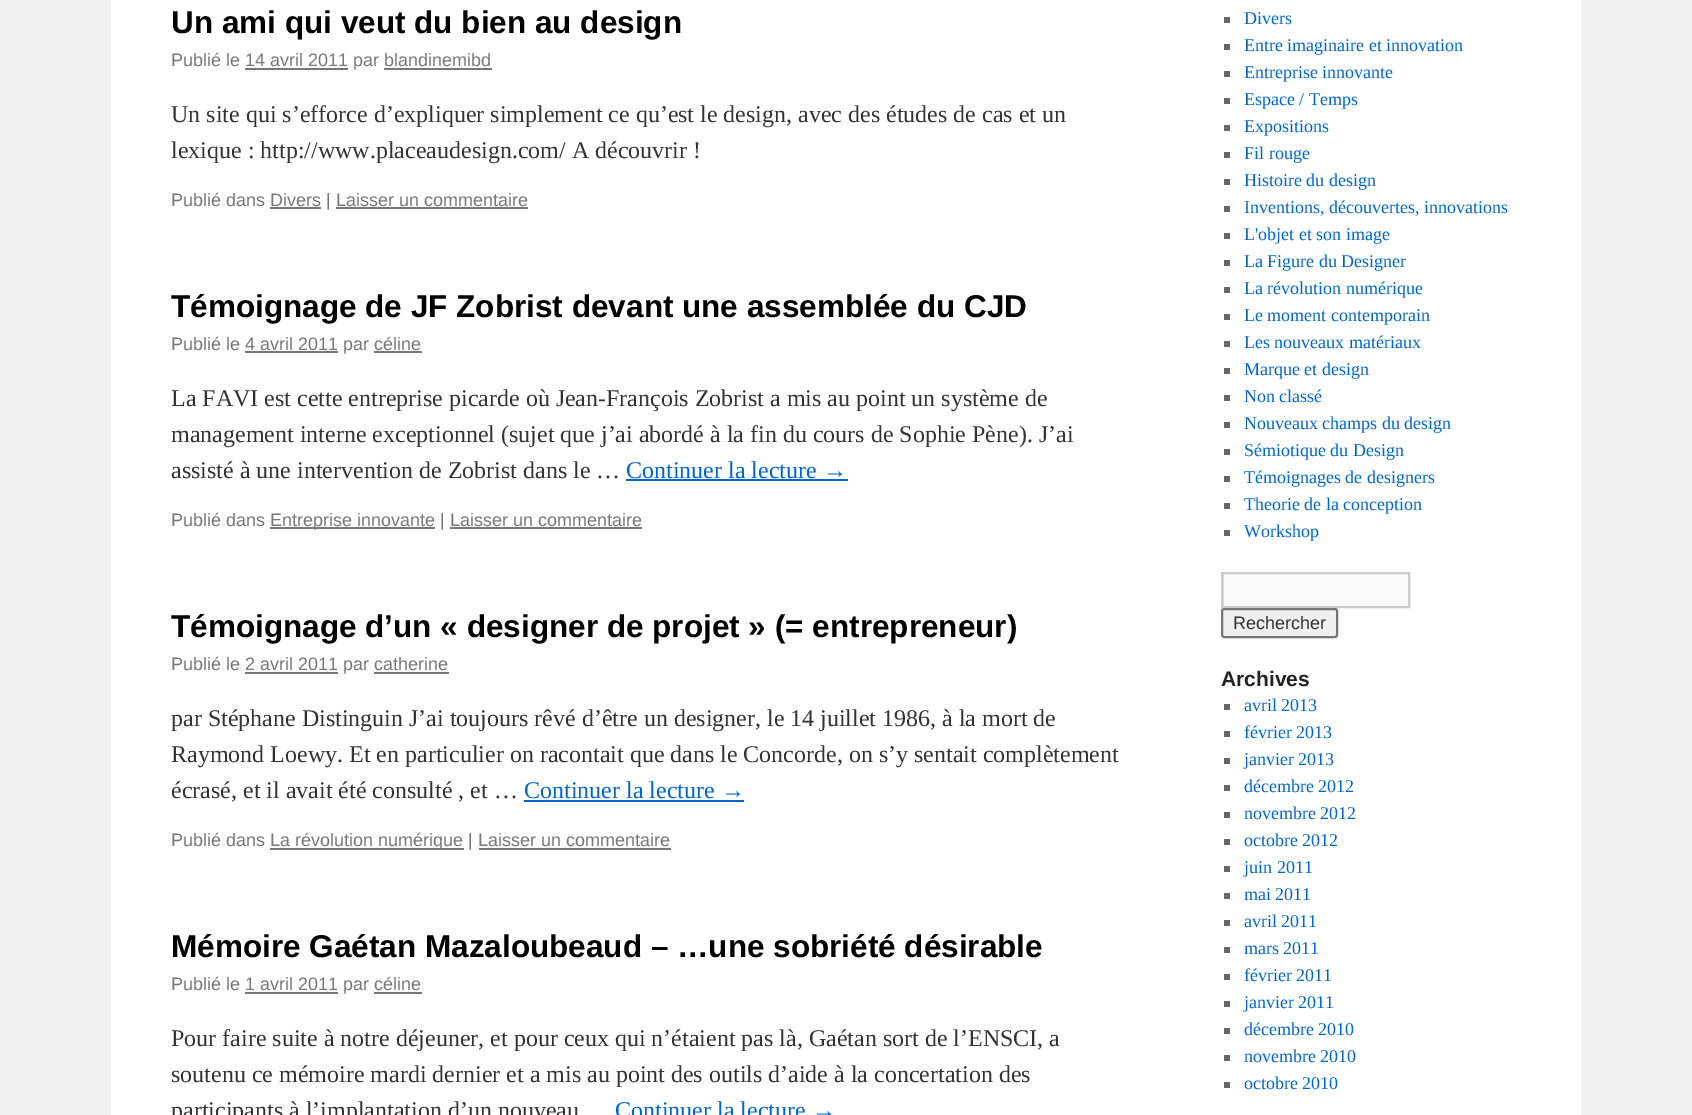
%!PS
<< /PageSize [1692 1115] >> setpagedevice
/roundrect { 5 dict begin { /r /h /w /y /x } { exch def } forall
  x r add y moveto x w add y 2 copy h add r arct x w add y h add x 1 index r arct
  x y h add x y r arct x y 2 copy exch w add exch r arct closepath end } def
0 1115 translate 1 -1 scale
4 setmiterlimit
0.945 setgray
0 0 1692 1115 rectfill
1 setgray
111 0 1470 1115 rectfill
/LiberationSans-Bold [31.5 0 0 -31.5 0 0] selectfont
0 setgray
171 33 moveto (Un ami qui veut du bien au design) show
/LiberationSans-Regular [18 0 0 -18 0 0] selectfont
0.467 setgray
171 66 moveto (Publié le 14 avril 2011 par blandinemibd) show
245 68 103 2 rectfill
384 68 108 2 rectfill
/LiberationSerif-Regular [24 0 0 -24 0 0] selectfont
0.2 setgray
171 122 moveto (Un site qui s’efforce d’expliquer simplement ce qu’est le design, avec des études de cas et un) show
171 158 moveto (lexique : http://www.placeaudesign.com/ A découvrir !) show
/LiberationSans-Regular [18 0 0 -18 0 0] selectfont
0.467 setgray
171 206 moveto (Publié dans Divers | Laisser un commentaire) show
270 207 51 2 rectfill
336 207 192 2 rectfill
/LiberationSans-Bold [31.5 0 0 -31.5 0 0] selectfont
0 setgray
171 317 moveto (Témoignage de JF Zobrist devant une assemblée du CJD) show
/LiberationSans-Regular [18 0 0 -18 0 0] selectfont
0.467 setgray
171 350 moveto (Publié le 4 avril 2011 par céline) show
245 351 93 2 rectfill
374 351 48 2 rectfill
/LiberationSerif-Regular [24 0 0 -24 0 0] selectfont
0.2 setgray
171 406 moveto (La FAVI est cette entreprise picarde où Jean-François Zobrist a mis au point un système de) show
171 442 moveto (management interne exceptionnel \(sujet que j’ai abordé à la fin du cours de Sophie Pène\). J’ai) show
171 478 moveto (assisté à une intervention de Zobrist dans le …) show
0 0.4 0.8 setrgbcolor
626 478 moveto (Continuer la lecture →) show
626 479 222 2 rectfill
/LiberationSans-Regular [18 0 0 -18 0 0] selectfont
0.467 setgray
171 526 moveto (Publié dans) show
270 527 165 2 rectfill
270 526 moveto (Entreprise innovante | Laisser un commentaire) show
450 527 192 2 rectfill
/LiberationSans-Bold [31.5 0 0 -31.5 0 0] selectfont
0 setgray
171 637 moveto (Témoignage d’un « designer de projet » \(= entrepreneur\)) show
/LiberationSans-Regular [18 0 0 -18 0 0] selectfont
0.467 setgray
171 670 moveto (Publié le 2 avril 2011 par catherine) show
245 672 93 2 rectfill
374 672 75 2 rectfill
/LiberationSerif-Regular [24 0 0 -24 0 0] selectfont
0.2 setgray
171 726 moveto (par Stéphane Distinguin J’ai toujours rêvé d’être un designer, le 14 juillet 1986, à la mort de) show
171 762 moveto (Raymond Loewy. Et en particulier on racontait que dans le Concorde, on s’y sentait complètement) show
171 798 moveto (écrasé, et il avait été consulté , et …) show
0 0.4 0.8 setrgbcolor
524 798 moveto (Continuer la lecture →) show
524 800 220 2 rectfill
/LiberationSans-Regular [18 0 0 -18 0 0] selectfont
0.467 setgray
171 846 moveto (Publié dans) show
270 848 194 2 rectfill
270 846 moveto (La révolution numérique | Laisser un commentaire) show
479 848 192 2 rectfill
/LiberationSans-Bold [31.5 0 0 -31.5 0 0] selectfont
0 setgray
171 957 moveto (Mémoire Gaétan Mazaloubeaud – …une sobriété désirable) show
/LiberationSans-Regular [18 0 0 -18 0 0] selectfont
0.467 setgray
171 990 moveto (Publié le 1 avril 2011 par céline) show
245 992 93 2 rectfill
374 992 48 2 rectfill
/LiberationSerif-Regular [24 0 0 -24 0 0] selectfont
0.2 setgray
171 1046 moveto (Pour faire suite à notre déjeuner, et pour ceux qui n’étaient pas là, Gaétan sort de l’ENSCI, a) show
171 1082 moveto (soutenu ce mémoire mardi dernier et a mis au point des outils d’aide à la concertation des) show
171 1118 moveto (participants à l’implantation d’un nouveau) show
0 0.4 0.8 setrgbcolor
615 1118 moveto (Continuer la lecture →) show
0.4 setgray
1224 17 6 6 rectfill
/LiberationSerif-Regular [18 0 0 -18 0 0] selectfont
0 0.4 0.8 setrgbcolor
1244 24 moveto (Divers) show
0.4 setgray
1224 44 6 6 rectfill
0 0.4 0.8 setrgbcolor
1244 51 moveto (Entre imaginaire et innovation) show
0.4 setgray
1224 71 6 6 rectfill
0 0.4 0.8 setrgbcolor
1244 78 moveto (Entreprise innovante) show
0.4 setgray
1224 98 6 6 rectfill
0 0.4 0.8 setrgbcolor
1244 105 moveto (Espace / Temps) show
0.4 setgray
1224 125 6 6 rectfill
0 0.4 0.8 setrgbcolor
1244 132 moveto (Expositions) show
0.4 setgray
1224 152 6 6 rectfill
0 0.4 0.8 setrgbcolor
1244 159 moveto (Fil rouge) show
0.4 setgray
1224 179 6 6 rectfill
0 0.4 0.8 setrgbcolor
1244 186 moveto (Histoire du design) show
0.4 setgray
1224 206 6 6 rectfill
0 0.4 0.8 setrgbcolor
1244 213 moveto (Inventions, découvertes, innovations) show
0.4 setgray
1224 233 6 6 rectfill
0 0.4 0.8 setrgbcolor
1244 240 moveto (L'objet et son image) show
0.4 setgray
1224 260 6 6 rectfill
0 0.4 0.8 setrgbcolor
1244 267 moveto (La Figure du Designer) show
0.4 setgray
1224 287 6 6 rectfill
0 0.4 0.8 setrgbcolor
1244 294 moveto (La révolution numérique) show
0.4 setgray
1224 314 6 6 rectfill
0 0.4 0.8 setrgbcolor
1244 321 moveto (Le moment contemporain) show
0.4 setgray
1224 341 6 6 rectfill
0 0.4 0.8 setrgbcolor
1244 348 moveto (Les nouveaux matériaux) show
0.4 setgray
1224 368 6 6 rectfill
0 0.4 0.8 setrgbcolor
1244 375 moveto (Marque et design) show
0.4 setgray
1224 395 6 6 rectfill
0 0.4 0.8 setrgbcolor
1244 402 moveto (Non classé) show
0.4 setgray
1224 422 6 6 rectfill
0 0.4 0.8 setrgbcolor
1244 429 moveto (Nouveaux champs du design) show
0.4 setgray
1224 449 6 6 rectfill
0 0.4 0.8 setrgbcolor
1244 456 moveto (Sémiotique du Design) show
0.4 setgray
1224 476 6 6 rectfill
0 0.4 0.8 setrgbcolor
1244 483 moveto (Témoignages de designers) show
0.4 setgray
1224 503 6 6 rectfill
0 0.4 0.8 setrgbcolor
1244 510 moveto (Theorie de la conception) show
0.4 setgray
1224 530 6 6 rectfill
0 0.4 0.8 setrgbcolor
1244 537 moveto (Workshop) show
0.976 setgray
1224 574 184 32 rectfill
gsave
1223 573 186 33 rectclip
0.878 setgray
newpath 1074 424 moveto 1557 424 lineto 1557 754 lineto 1074 754 lineto closepath 1224 574 moveto 1410 574 lineto 1410 608 lineto 1224 608 lineto closepath eofill
grestore
0.8 setgray
2 setlinewidth
1222 573 187 34 rectstroke
0.937 setgray
1222 609 115 28 2 roundrect gsave fill grestore
0.463 setgray
stroke
/LiberationSans-Regular [18 0 0 -18 0 0] selectfont
0.2 setgray
1233 629 moveto (Rechercher) show
/LiberationSans-Bold [21 0 0 -21 0 0] selectfont
0.133 setgray
1221 686 moveto (Archives) show
0.4 setgray
1224 704 6 6 rectfill
/LiberationSerif-Regular [18 0 0 -18 0 0] selectfont
0 0.4 0.8 setrgbcolor
1244 711 moveto (avril 2013) show
0.4 setgray
1224 731 6 6 rectfill
0 0.4 0.8 setrgbcolor
1244 738 moveto (février 2013) show
0.4 setgray
1224 758 6 6 rectfill
0 0.4 0.8 setrgbcolor
1244 765 moveto (janvier 2013) show
0.4 setgray
1224 785 6 6 rectfill
0 0.4 0.8 setrgbcolor
1244 792 moveto (décembre 2012) show
0.4 setgray
1224 812 6 6 rectfill
0 0.4 0.8 setrgbcolor
1244 819 moveto (novembre 2012) show
0.4 setgray
1224 839 6 6 rectfill
0 0.4 0.8 setrgbcolor
1244 846 moveto (octobre 2012) show
0.4 setgray
1224 866 6 6 rectfill
0 0.4 0.8 setrgbcolor
1244 873 moveto (juin 2011) show
0.4 setgray
1224 893 6 6 rectfill
0 0.4 0.8 setrgbcolor
1244 900 moveto (mai 2011) show
0.4 setgray
1224 920 6 6 rectfill
0 0.4 0.8 setrgbcolor
1244 927 moveto (avril 2011) show
0.4 setgray
1224 947 6 6 rectfill
0 0.4 0.8 setrgbcolor
1244 954 moveto (mars 2011) show
0.4 setgray
1224 974 6 6 rectfill
0 0.4 0.8 setrgbcolor
1244 981 moveto (février 2011) show
0.4 setgray
1224 1001 6 6 rectfill
0 0.4 0.8 setrgbcolor
1244 1008 moveto (janvier 2011) show
0.4 setgray
1224 1028 6 6 rectfill
0 0.4 0.8 setrgbcolor
1244 1035 moveto (décembre 2010) show
0.4 setgray
1224 1055 6 6 rectfill
0 0.4 0.8 setrgbcolor
1244 1062 moveto (novembre 2010) show
0.4 setgray
1224 1082 6 6 rectfill
0 0.4 0.8 setrgbcolor
1244 1089 moveto (octobre 2010) show
showpage
